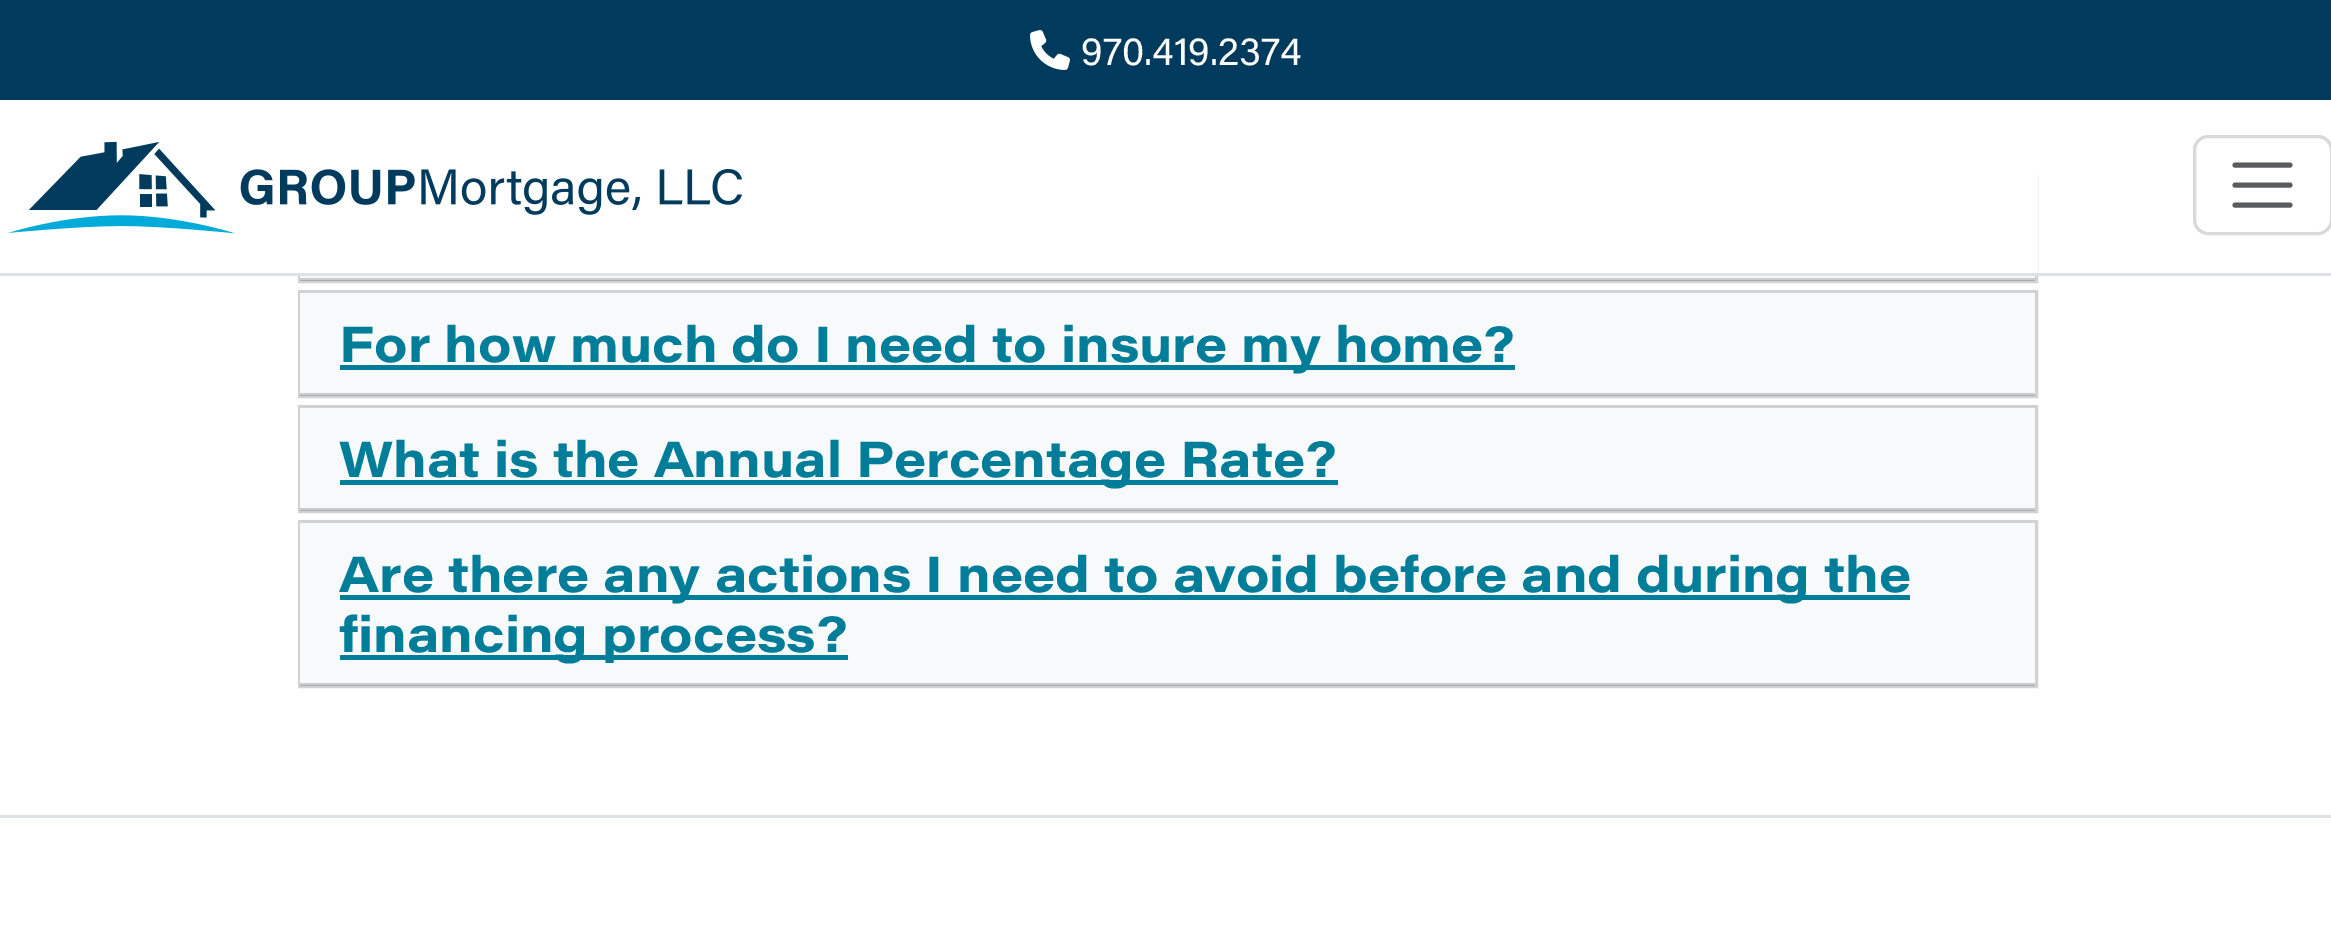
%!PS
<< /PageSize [2331 925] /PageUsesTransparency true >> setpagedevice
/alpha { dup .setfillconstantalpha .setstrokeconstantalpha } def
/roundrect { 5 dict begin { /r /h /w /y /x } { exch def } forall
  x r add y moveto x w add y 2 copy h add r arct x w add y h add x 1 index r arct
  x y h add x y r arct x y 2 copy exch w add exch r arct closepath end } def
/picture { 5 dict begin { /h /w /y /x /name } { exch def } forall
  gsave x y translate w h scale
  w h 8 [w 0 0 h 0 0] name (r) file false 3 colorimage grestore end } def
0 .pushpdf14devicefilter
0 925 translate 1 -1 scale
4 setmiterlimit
1 setgray
0 0 2331 925 rectfill
0.871 0.886 0.902 setrgbcolor
0 815 2331 3 rectfill
0.824 setgray
3 setlinewidth
299.5 176.5 1737 105 rectstroke
1 setgray
298 175 1740 98 rectfill
0.871 0.886 0.902 setrgbcolor
0 273 2331 3 rectfill
0 0.227 0.361 setrgbcolor
0 0 2331 100 rectfill
(img1.rgb) 1030 30 40 40 picture
/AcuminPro-Regular [40 0 0 -40 0 0] selectfont
1 setgray
1081 65 moveto (970.419.2374) show
(img2.rgb) 8 141 734 93 picture
0.851 setgray
2194.5 136.5 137 97 13.5 roundrect stroke
0.349 0.361 0.373 setrgbcolor
5 setlinewidth
1 setlinecap
newpath 2235 165 moveto 2290 165 lineto 2235 185 moveto 2290 185 lineto 2235 205 moveto 2290 205 lineto stroke
0.973 0.976 0.98 setrgbcolor
300 276 1735 4 rectfill
0.18 alpha
0 setgray
300 278 1735 3 rectfill
1 alpha
0.824 setgray
3 setlinewidth
0 setlinecap
299.5 291.5 1737 105 rectstroke
0.973 0.976 0.98 setrgbcolor
300 293 1735 102 rectfill
0.18 alpha
0 setgray
300 393 1735 3 rectfill
1 alpha
0 0.49 0.6 setrgbcolor
340 365 1175 5 rectfill
/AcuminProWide-Bold [50 0 0 -50 0 0] selectfont
339 362 moveto (For how much do I need to insure my home?) show
0.824 setgray
299.5 406.5 1737 105 rectstroke
0.973 0.976 0.98 setrgbcolor
300 408 1735 102 rectfill
0.18 alpha
0 setgray
300 508 1735 3 rectfill
1 alpha
0 0.49 0.6 setrgbcolor
340 480 998 5 rectfill
339 477 moveto (What is the Annual Percentage Rate?) show
0.824 setgray
299.5 521.5 1737 165 rectstroke
0.973 0.976 0.98 setrgbcolor
300 523 1735 162 rectfill
0.18 alpha
0 setgray
300 683 1735 3 rectfill
1 alpha
0 0.49 0.6 setrgbcolor
340 595 1570 5 rectfill
339 592 moveto (Are there any actions I need to avoid before and during the) show
340 655 508 5 rectfill
339 652 moveto (financing process?) show
.poppdf14devicefilter showpage
